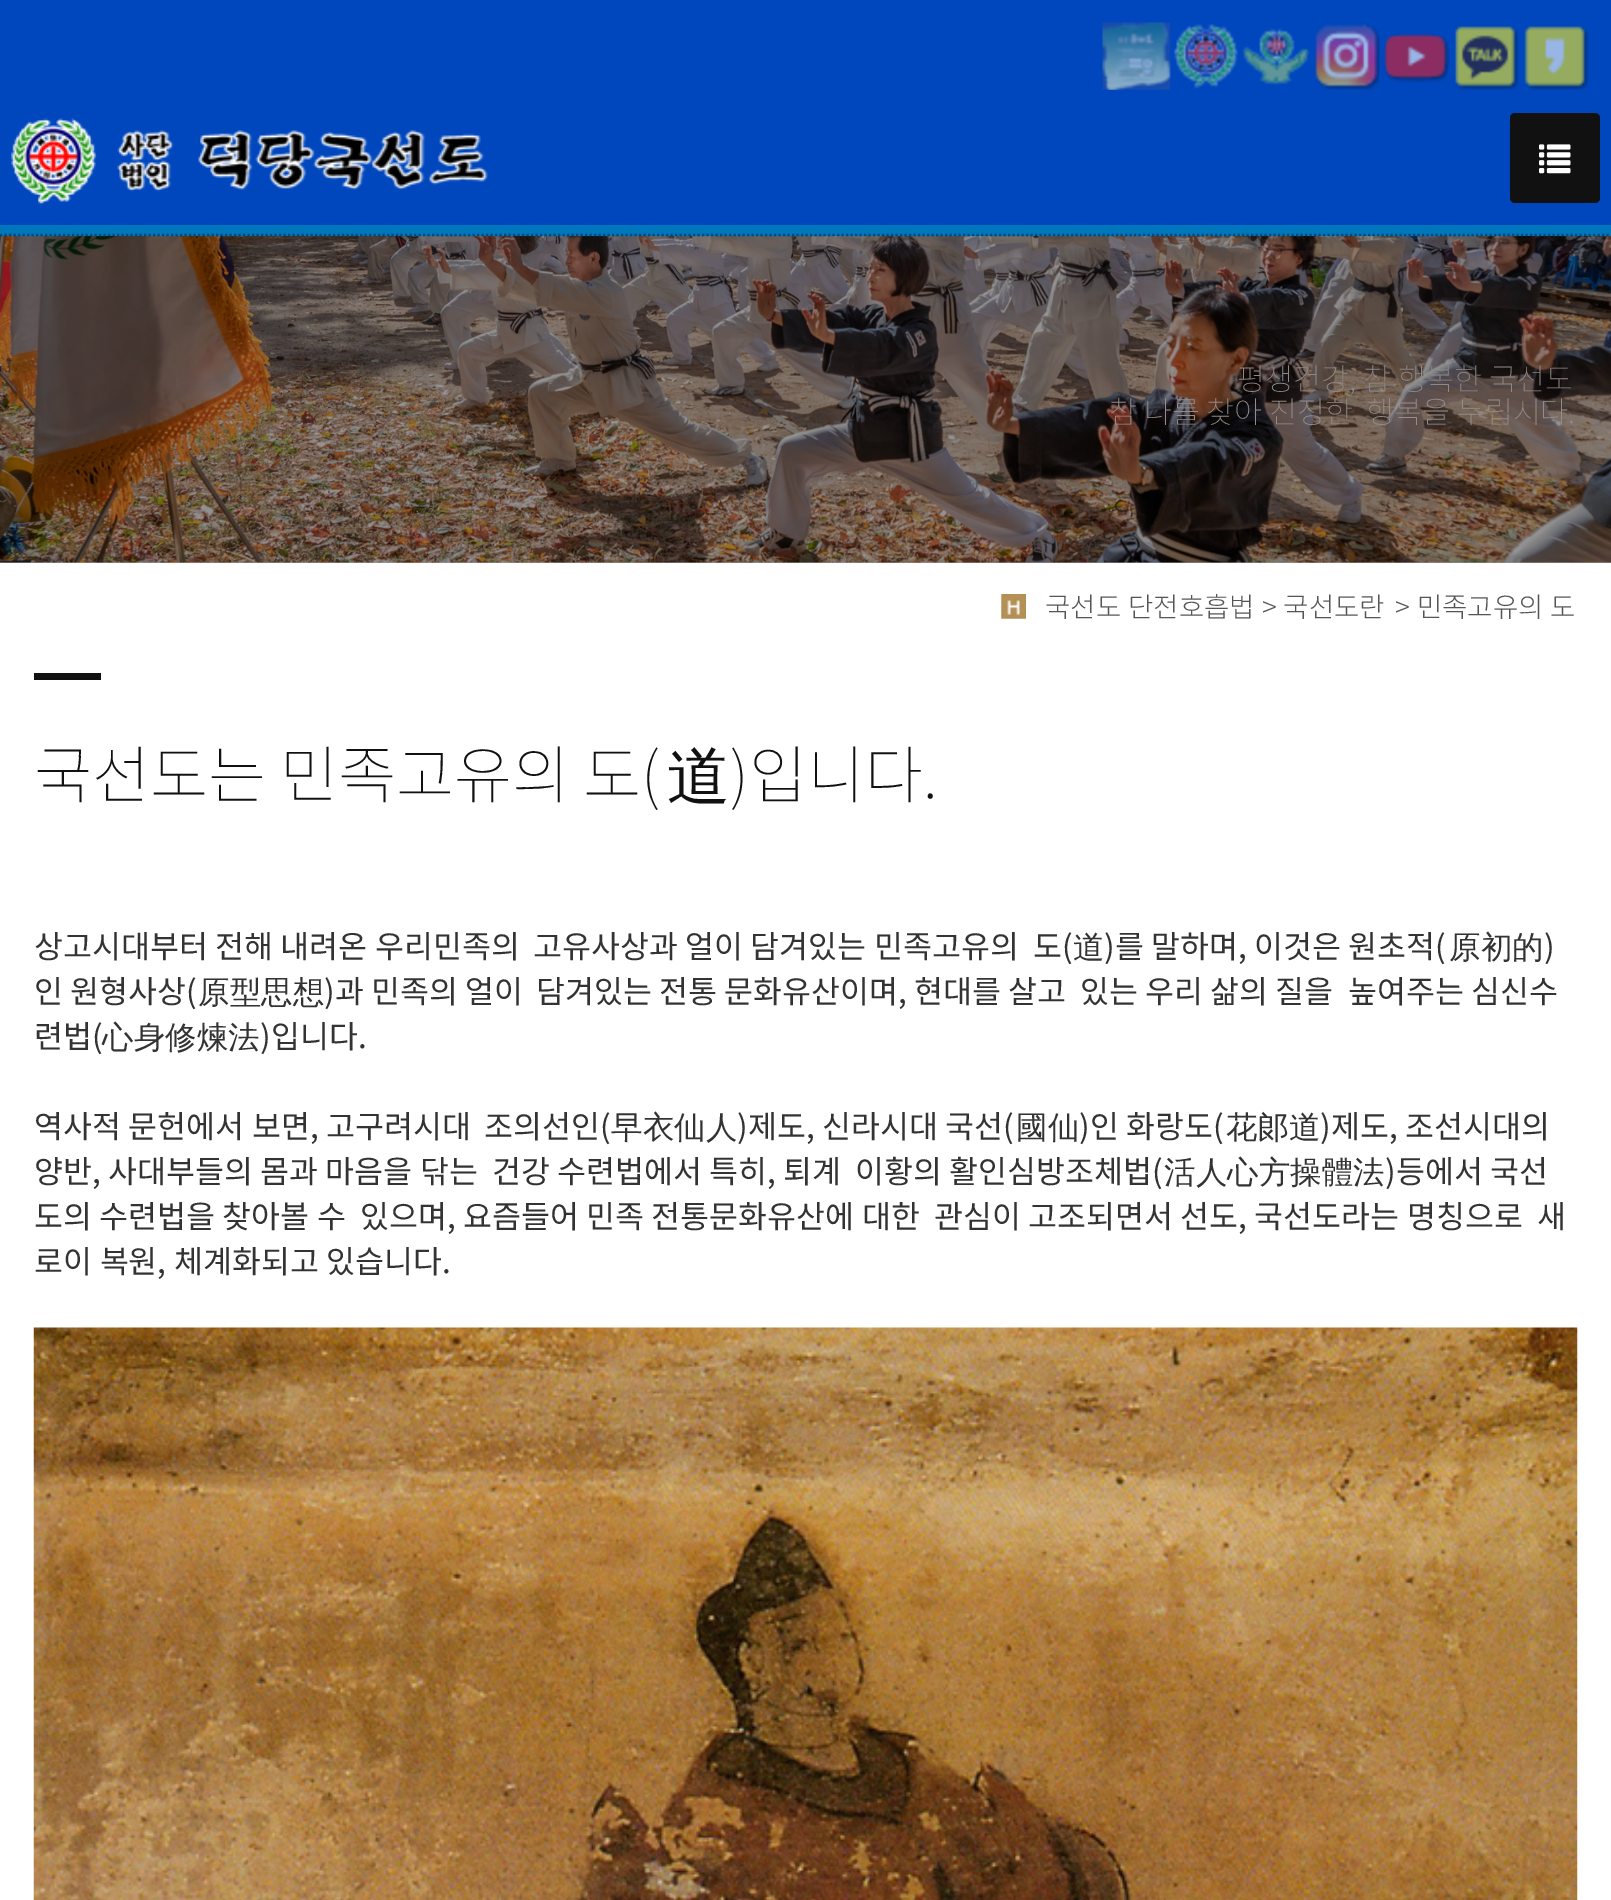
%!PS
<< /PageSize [1611 1900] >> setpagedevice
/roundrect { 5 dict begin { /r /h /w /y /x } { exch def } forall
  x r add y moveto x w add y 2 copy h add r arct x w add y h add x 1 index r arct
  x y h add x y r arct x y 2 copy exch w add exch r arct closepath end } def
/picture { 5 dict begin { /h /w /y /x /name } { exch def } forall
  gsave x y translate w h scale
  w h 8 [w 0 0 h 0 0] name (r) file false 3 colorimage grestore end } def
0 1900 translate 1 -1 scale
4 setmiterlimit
1 setgray
0 0 1611 1900 rectfill
0.6 setgray
0 562 1611 1 rectfill
0 0.278 0.741 setrgbcolor
0 0 1611 225 rectfill
(img1.rgb) 1102 22 69 68 picture
(img2.rgb) 1173 24 65 65 picture
(img3.rgb) 1242 28 68 57 picture
(img4.rgb) 1315 24 65 66 picture
(img5.rgb) 1383 33 67 50 picture
(img6.rgb) 1455 26 64 64 picture
(img7.rgb) 1524 26 65 64 picture
(img8.rgb) 11 118 477 86 picture
0.067 setgray
1510 113 90 90 5 roundrect fill
(img9.rgb) 1539 144 32 30 picture
0 0.463 0.741 setrgbcolor
0 225 1611 11 rectfill
(img10.rgb) 0 236 1611 327 picture
0 0.278 0.443 setrgbcolor
2.2 setlinewidth
[2.25 2.25] 0 setdash
newpath 0 235 moveto 1611 235 lineto stroke
/NotoSansKR-Thin [30.4 0 0 -30.4 0 0] selectfont
0.561 0.537 0.529 setrgbcolor
1237 390 moveto 0.5 0 32 (평생건강, 참 행복한 국선도) widthshow
0.588 0.553 0.541 setrgbcolor
1109 423 moveto (참 나를 찾아 진정한) show
1366 423 moveto (행복을 누립시다.) show
(img11.rgb) 1001 594 25 25 picture
/NotoSansKR-Light [27.5 0 0 -27.5 0 0] selectfont
0.333 setgray
1045 617 moveto 1 0 32 (국선도 단전호흡법 > 국선도란) widthshow
1395 617 moveto 1 0 32 (> 민족고유의 도) widthshow
0.067 setgray
34 673 67 7 rectfill
/NotoSansKR-Thin [63 0 0 -63 0 0] selectfont
34 798 moveto (국선도는 민족고유의 도\() show
/WenQuanYiZenHei-Medium [63 0 0 -63 0 0] selectfont
667 798 moveto (道) show
/NotoSansKR-Thin [63 0 0 -63 0 0] selectfont
730 798 moveto (\)입니다.) show
/NotoSansKR-Regular [31.5 0 0 -31.5 0 0] selectfont
0.2 setgray
34 958 moveto 0.25 0 32 (상고시대부터 전해 내려온 우리민족의) widthshow
533 958 moveto 0.25 0 32 (고유사상과 얼이 담겨있는 민족고유의) widthshow
1033 958 moveto 0.25 0 32 (도\() widthshow
/WenQuanYiZenHei-Medium [31.5 0 0 -31.5 0 0] selectfont
1073 958 moveto (道) show
/NotoSansKR-Regular [31.5 0 0 -31.5 0 0] selectfont
1104 958 moveto 0.25 0 32 (\)를 말하며, 이것은 원초적\() widthshow
/WenQuanYiZenHei-Medium [31.5 0 0 -31.5 0 0] selectfont
1449 958 moveto (原初的) show
/NotoSansKR-Regular [31.5 0 0 -31.5 0 0] selectfont
1544 958 moveto (\)) show
34 1003 moveto 0.1 0 32 (인 원형사상\() widthshow
/WenQuanYiZenHei-Medium [31.5 0 0 -31.5 0 0] selectfont
198 1003 moveto (原型思想) show
/NotoSansKR-Regular [31.5 0 0 -31.5 0 0] selectfont
324 1003 moveto 0.1 0 32 (\)과 민족의 얼이) widthshow
536 1003 moveto 0.1 0 32 (담겨있는 전통 문화유산이며, 현대를 살고) widthshow
1080 1003 moveto 0.1 0 32 (있는 우리 삶의 질을) widthshow
1348 1003 moveto 0.1 0 32 (높여주는 심신수) widthshow
34 1048 moveto (련법\() show
/WenQuanYiZenHei-Medium [31.5 0 0 -31.5 0 0] selectfont
102 1048 moveto (心身修煉法) show
/NotoSansKR-Regular [31.5 0 0 -31.5 0 0] selectfont
260 1048 moveto (\)입니다.) show
34 1138 moveto 0.5 0 32 (역사적 문헌에서 보면, 고구려시대) widthshow
484 1138 moveto 0.5 0 32 (조의선인\() widthshow
/WenQuanYiZenHei-Medium [31.5 0 0 -31.5 0 0] selectfont
611 1138 moveto (早衣仙人) show
/NotoSansKR-Regular [31.5 0 0 -31.5 0 0] selectfont
737 1138 moveto 0.5 0 32 (\)제도, 신라시대 국선\() widthshow
/WenQuanYiZenHei-Medium [31.5 0 0 -31.5 0 0] selectfont
1016 1138 moveto (國仙) show
/NotoSansKR-Regular [31.5 0 0 -31.5 0 0] selectfont
1079 1138 moveto 0.5 0 32 (\)인 화랑도\() widthshow
/WenQuanYiZenHei-Medium [31.5 0 0 -31.5 0 0] selectfont
1226 1138 moveto (花郞道) show
/NotoSansKR-Regular [31.5 0 0 -31.5 0 0] selectfont
1320 1138 moveto 0.5 0 32 (\)제도, 조선시대의) widthshow
34 1183 moveto 0.25 0 32 (양반, 사대부들의 몸과 마음을 닦는) widthshow
492 1183 moveto 0.25 0 32 (건강 수련법에서 특히, 퇴계) widthshow
855 1183 moveto 0.25 0 32 (이황의 활인심방조체법\() widthshow
/WenQuanYiZenHei-Medium [31.5 0 0 -31.5 0 0] selectfont
1164 1183 moveto (活人心方操體法) show
/NotoSansKR-Regular [31.5 0 0 -31.5 0 0] selectfont
1385 1183 moveto 0.25 0 32 (\)등에서 국선) widthshow
34 1228 moveto 0.25 0 32 (도의 수련법을 찾아볼 수) widthshow
360 1228 moveto 0.25 0 32 (있으며, 요즘들어 민족 전통문화유산에 대한) widthshow
934 1228 moveto 0.25 0 32 (관심이 고조되면서 선도, 국선도라는 명칭으로) widthshow
1537 1228 moveto 0.25 0 32 (새) widthshow
34 1273 moveto 0.5 0 32 (로이 복원, 체계화되고 있습니다.) widthshow
(img12.rgb) 33 1327 1545 573 picture
showpage
